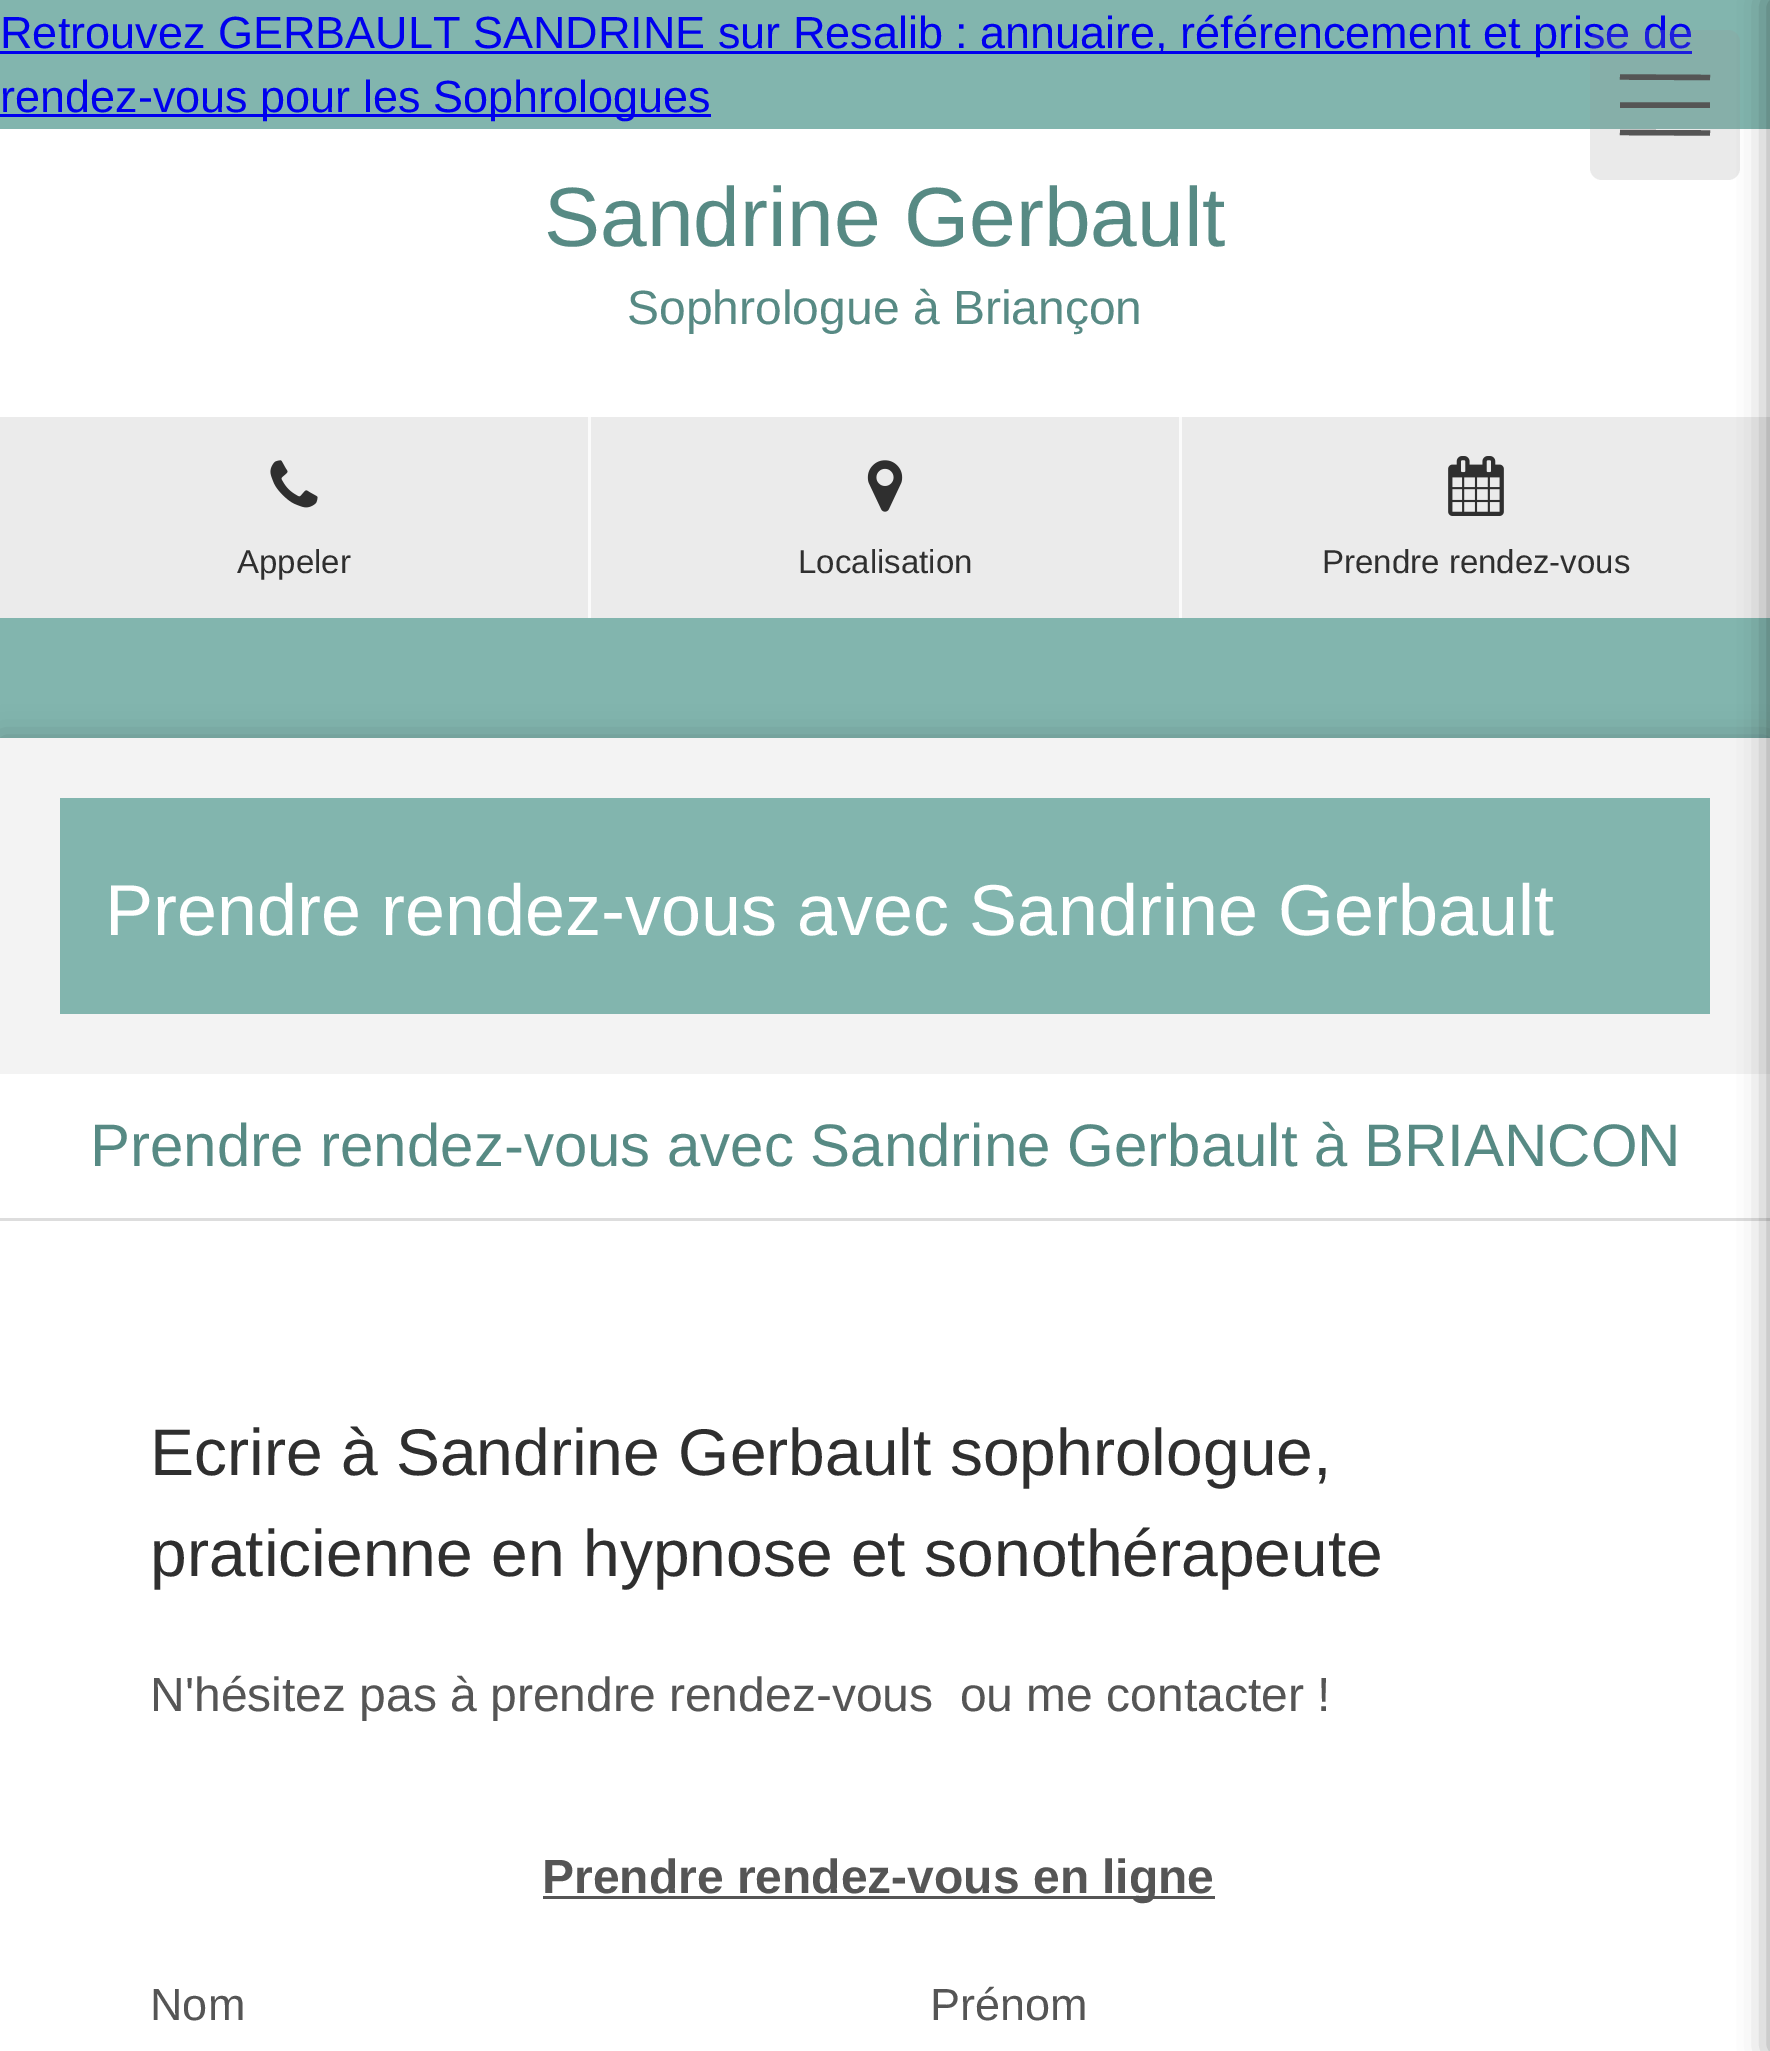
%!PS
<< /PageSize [1770 2051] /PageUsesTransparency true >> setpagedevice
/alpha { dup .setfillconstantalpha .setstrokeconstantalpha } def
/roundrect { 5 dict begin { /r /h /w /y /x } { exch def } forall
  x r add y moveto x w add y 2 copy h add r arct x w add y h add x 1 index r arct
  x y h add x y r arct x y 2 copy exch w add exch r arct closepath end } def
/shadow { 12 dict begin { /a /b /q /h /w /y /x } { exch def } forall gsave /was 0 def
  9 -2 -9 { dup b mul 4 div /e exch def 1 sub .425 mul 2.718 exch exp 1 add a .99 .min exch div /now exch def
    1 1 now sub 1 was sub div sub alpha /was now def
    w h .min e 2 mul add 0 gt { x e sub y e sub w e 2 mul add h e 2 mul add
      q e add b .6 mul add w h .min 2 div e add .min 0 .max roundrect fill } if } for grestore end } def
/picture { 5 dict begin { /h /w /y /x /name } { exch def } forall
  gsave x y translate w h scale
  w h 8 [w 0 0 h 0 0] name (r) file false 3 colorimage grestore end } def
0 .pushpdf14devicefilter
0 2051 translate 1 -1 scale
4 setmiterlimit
0.51 0.71 0.682 setrgbcolor
0 0 1770 2051 rectfill
0 0 0.933 setrgbcolor
0 51 1692 3 rectfill
/LiberationSans-Regular [45 0 0 -45 0 0] selectfont
0 48 moveto (Retrouvez GERBAULT SANDRINE sur Resalib : annuaire, référencement et prise de) show
0 114 711 3 rectfill
0 112 moveto (rendez-vous pour les Sophrologues) show
1 setgray
0 129 1770 288 rectfill
0.2 alpha
0.588 setgray
1590 30 150 150 12 roundrect fill
1 alpha
0.922 setgray
0 417 1770 201 rectfill
0 setgray
0 738 1770 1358 0 15 0.2 shadow
1 setgray
0 1074 1770 977 rectfill
0.953 setgray
0 738 1770 336 rectfill
0.867 setgray
0 1218 1770 3 rectfill
0 setgray
1770 0 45 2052 0 15 0.4 shadow
0.333 setgray
5.4 setlinewidth
newpath 1620 77 moveto 1710 77.5 lineto stroke
newpath 1620 105 moveto 1710 105 lineto stroke
newpath 1620 132.5 moveto 1710 133 lineto stroke
/LiberationSans-Regular [84 0 0 -84 0 0] selectfont
0.341 0.541 0.518 setrgbcolor
544 246 moveto (Sandrine Gerbault) show
/LiberationSans-Regular [48 0 0 -48 0 0] selectfont
627 324 moveto (Sophrologue à Briançon) show
(img1.rgb) 270 460 48 48 picture
/LiberationSans-Regular [33 0 0 -33 0 0] selectfont
0.184 setgray
237 573 moveto (Appeler) show
0.984 setgray
588 417 3 201 rectfill
(img2.rgb) 867 460 36 52 picture
0.184 setgray
798 573 moveto (Localisation) show
0.984 setgray
1179 417 3 201 rectfill
(img3.rgb) 1448 456 56 60 picture
0.184 setgray
1322 573 moveto (Prendre rendez-vous) show
0.51 0.71 0.682 setrgbcolor
60 798 1650 216 rectfill
/LiberationSans-Regular [72 0 0 -72 0 0] selectfont
1 setgray
105 935 moveto (Prendre rendez-vous avec Sandrine Gerbault) show
/LiberationSans-Regular [60 0 0 -60 0 0] selectfont
0.341 0.541 0.518 setrgbcolor
90 1166 moveto (Prendre rendez-vous avec Sandrine Gerbault à BRIANCON) show
/LiberationSans-Regular [66 0 0 -66 0 0] selectfont
0.184 setgray
150 1475 moveto (Ecrire à Sandrine Gerbault sophrologue,) show
150 1576 moveto (praticienne en hypnose et sonothérapeute) show
/LiberationSans-Regular [48 0 0 -48 0 0] selectfont
0.333 setgray
150 1711 moveto (N'hésitez pas à prendre rendez-vous  ou me contacter !) show
543 1896 672 3 rectfill
/LiberationSans-Bold [48 0 0 -48 0 0] selectfont
542 1893 moveto (Prendre rendez-vous en ligne) show
/LiberationSans-Regular [45 0 0 -45 0 0] selectfont
150 2020 moveto (Nom) show
930 2020 moveto (Prénom) show
.poppdf14devicefilter showpage
